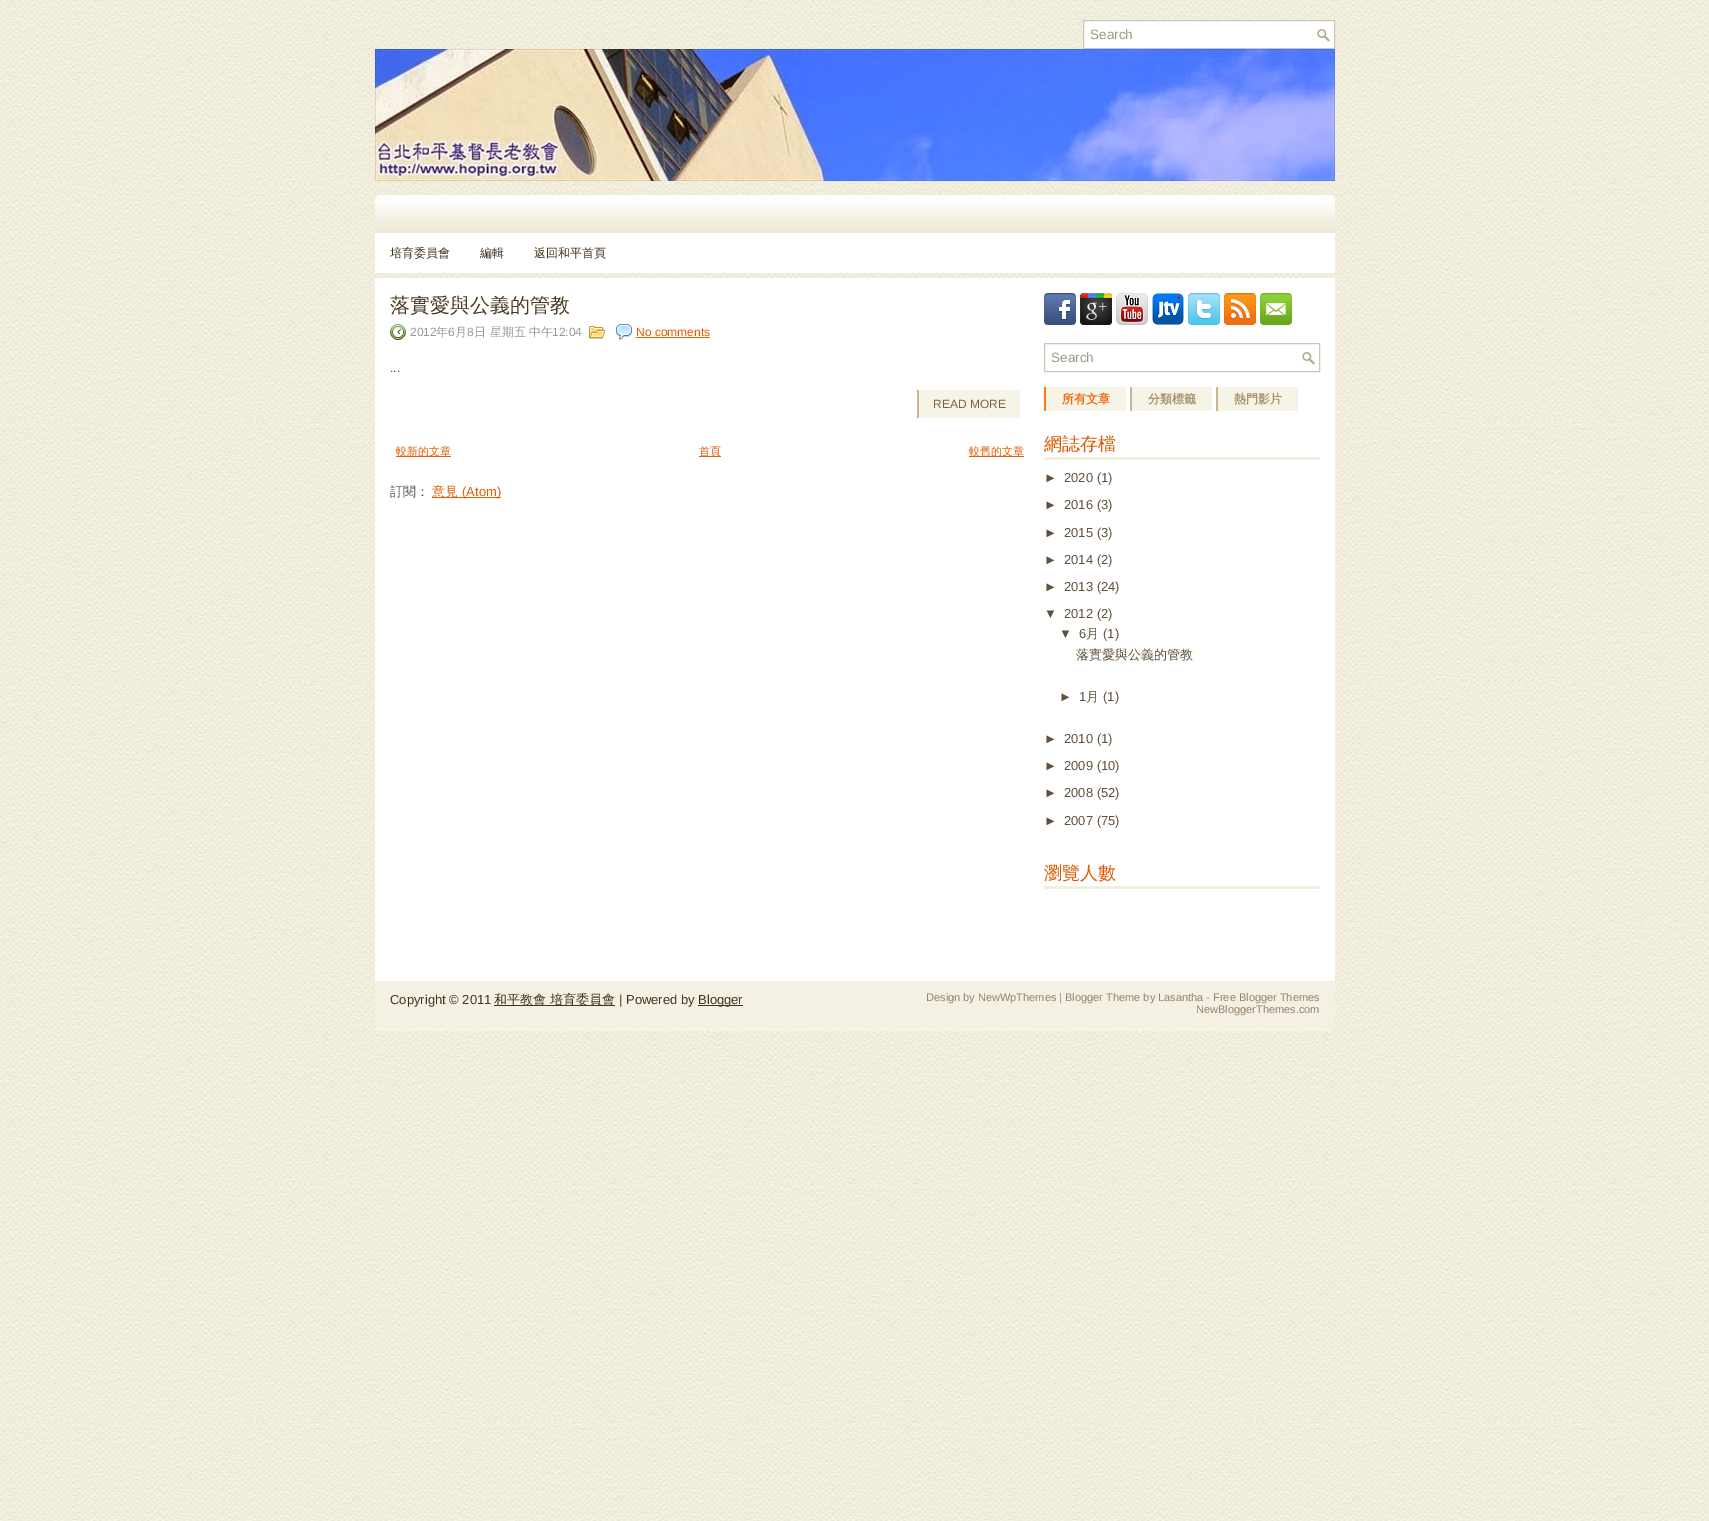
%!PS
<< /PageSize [1709 1521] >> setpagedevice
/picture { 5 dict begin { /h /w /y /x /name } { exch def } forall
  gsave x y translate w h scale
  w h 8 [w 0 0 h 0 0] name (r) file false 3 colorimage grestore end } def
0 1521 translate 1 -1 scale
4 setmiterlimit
1 setgray
0 0 1709 1521 rectfill
(img1.rgb) 0 0 1709 1521 picture
1084 21 250 27 rectfill
(img2.rgb) 1317 29 13 13 picture
0.796 0.784 0.714 setrgbcolor
1083.5 20.5 251 28 rectstroke
/LiberationSans-Regular [13.5 0 0 -13.5 0 0] selectfont
0.612 0.6 0.529 setrgbcolor
1090 39 moveto (Search) show
(img3.rgb) 375 49 960 132 picture
(img4.rgb) 375 195 960 38 picture
1 setgray
375 233 960 40 rectfill
/WenQuanYiZenHei-Medium [12 0 0 -12 0 0] selectfont
0.263 0.204 0.133 setrgbcolor
390 257 moveto (培育委員會) show
480 257 moveto (編輯) show
534 257 moveto (返回和平首頁) show
1 setgray
375 278 960 703 rectfill
/WenQuanYiZenHei-Medium [20 0 0 -20 0 0] selectfont
0.294 0.224 0.137 setrgbcolor
390 312 moveto (落實愛與公義的管教) show
(img5.rgb) 390 324 16 16 picture
/LiberationSans-Regular [12 0 0 -12 0 0] selectfont
0.6 setgray
410 336 moveto (2012) show
/WenQuanYiZenHei-Medium [12 0 0 -12 0 0] selectfont
436 336 moveto (年) show
/LiberationSans-Regular [12 0 0 -12 0 0] selectfont
448 336 moveto (6) show
/WenQuanYiZenHei-Medium [12 0 0 -12 0 0] selectfont
455 336 moveto (月) show
/LiberationSans-Regular [12 0 0 -12 0 0] selectfont
467 336 moveto (8) show
/WenQuanYiZenHei-Medium [12 0 0 -12 0 0] selectfont
474 336 moveto (日 星期五 中午) show
/LiberationSans-Regular [12 0 0 -12 0 0] selectfont
552 336 moveto (12:04) show
(img6.rgb) 589 326 16 13 picture
(img7.rgb) 616 324 16 16 picture
0.898 0.365 0.008 setrgbcolor
636 336 moveto (No comments) show
636 337 74 1 rectfill
0.333 setgray
390 372 moveto (...) show
0.965 0.957 0.902 setrgbcolor
919 390 101 28 rectfill
0.788 0.706 0.576 setrgbcolor
917 390 2 28 rectfill
0.49 0.384 0.259 setrgbcolor
933 408 moveto (READ MORE) show
0.898 0.365 0.008 setrgbcolor
396 456 55 1 rectfill
/WenQuanYiZenHei-Medium [11 0 0 -11 0 0] selectfont
396 455 moveto (較新的文章) show
699 456 22 1 rectfill
699 455 moveto (首頁) show
969 456 55 1 rectfill
969 455 moveto (較舊的文章) show
gsave
390 293 640 223 rectclip
/WenQuanYiZenHei-Medium [13 0 0 -13 0 0] selectfont
0.333 setgray
390 496 moveto (訂閱：) show
grestore
432 497 69 1 rectfill
/WenQuanYiZenHei-Medium [13 0 0 -13 0 0] selectfont
432 496 moveto (意見) show
/LiberationSans-Regular [13 0 0 -13 0 0] selectfont
462 496 moveto (\(Atom\)) show
(img8.rgb) 1044 293 32 32 picture
(img9.rgb) 1080 293 32 32 picture
(img10.rgb) 1116 293 32 32 picture
(img11.rgb) 1152 293 32 32 picture
(img12.rgb) 1188 293 32 32 picture
(img13.rgb) 1224 293 32 32 picture
(img14.rgb) 1260 293 32 32 picture
(img2.rgb) 1302 352 13 13 picture
0.796 0.784 0.714 setrgbcolor
1044.5 343.5 275 28 rectstroke
/LiberationSans-Regular [13.5 0 0 -13.5 0 0] selectfont
0.612 0.6 0.529 setrgbcolor
1051 362 moveto (Search) show
0.965 0.957 0.902 setrgbcolor
1046 387 80 24 rectfill
0.969 0.478 0.071 setrgbcolor
1044 387 2 24 rectfill
/WenQuanYiZenHei-Bold [12 0 0 -12 0 0] selectfont
0.937 0.412 0.031 setrgbcolor
1062 403 moveto (所有文章) show
0.965 0.957 0.902 setrgbcolor
1132 387 80 24 rectfill
0.788 0.706 0.576 setrgbcolor
1130 387 2 24 rectfill
0.671 0.561 0.427 setrgbcolor
1148 403 moveto (分類標籤) show
0.965 0.957 0.902 setrgbcolor
1218 387 80 24 rectfill
0.788 0.706 0.576 setrgbcolor
1216 387 2 24 rectfill
0.671 0.561 0.427 setrgbcolor
1234 403 moveto (熱門影片) show
0.949 0.937 0.871 setrgbcolor
1044 457 276 3 rectfill
gsave
1044 293 276 658 rectclip
/WenQuanYiZenHei-Medium [18 0 0 -18 0 0] selectfont
0.871 0.345 0.004 setrgbcolor
1044 450 moveto (網誌存檔) show
grestore
/LiberationSans-Regular [13 0 0 -13 0 0] selectfont
0.376 0.314 0.235 setrgbcolor
1044 482 moveto (►) show
1064 482 moveto (2020 \(1\)) show
1044 509 moveto (►) show
1064 509 moveto (2016 \(3\)) show
1044 537 moveto (►) show
1064 537 moveto (2015 \(3\)) show
1044 564 moveto (►) show
1064 564 moveto (2014 \(2\)) show
1044 591 moveto (►) show
1064 591 moveto (2013 \(24\)) show
1044 618 moveto (▼) show
1064 618 moveto (2012 \(2\)) show
1059 638 moveto (▼) show
1079 638 moveto (6) show
/WenQuanYiZenHei-Medium [13 0 0 -13 0 0] selectfont
1086 638 moveto (月) show
/LiberationSans-Regular [13 0 0 -13 0 0] selectfont
1103 638 moveto (\(1\)) show
/WenQuanYiZenHei-Medium [13 0 0 -13 0 0] selectfont
1076 659 moveto (落實愛與公義的管教) show
/LiberationSans-Regular [13 0 0 -13 0 0] selectfont
1059 701 moveto (►) show
1079 701 moveto (1) show
/WenQuanYiZenHei-Medium [13 0 0 -13 0 0] selectfont
1086 701 moveto (月) show
/LiberationSans-Regular [13 0 0 -13 0 0] selectfont
1103 701 moveto (\(1\)) show
1044 743 moveto (►) show
1064 743 moveto (2010 \(1\)) show
1044 770 moveto (►) show
1064 770 moveto (2009 \(10\)) show
1044 797 moveto (►) show
1064 797 moveto (2008 \(52\)) show
1044 825 moveto (►) show
1064 825 moveto (2007 \(75\)) show
0.949 0.937 0.871 setrgbcolor
1044 886 276 3 rectfill
/WenQuanYiZenHei-Medium [18 0 0 -18 0 0] selectfont
0.871 0.345 0.004 setrgbcolor
1044 879 moveto (瀏覽人數) show
(img15.rgb) 375 981 960 50 picture
/LiberationSans-Regular [13 0 0 -13 0 0] selectfont
0.263 0.204 0.133 setrgbcolor
390 1004 moveto (Copyright © 2011) show
494 1005 121 1 rectfill
/WenQuanYiZenHei-Medium [13 0 0 -13 0 0] selectfont
494 1004 moveto (和平教會 培育委員會) show
/LiberationSans-Regular [13 0 0 -13 0 0] selectfont
619 1004 moveto (| Powered by) show
698 1005 45 1 rectfill
698 1004 moveto (Blogger) show
/LiberationSans-Regular [11 0 0 -11 0 0] selectfont
0.58 0.51 0.424 setrgbcolor
926 1001 moveto (Design by NewWpThemes | Blogger Theme by Lasantha - Free Blogger Themes) show
1196 1013 moveto (NewBloggerThemes.com) show
showpage
